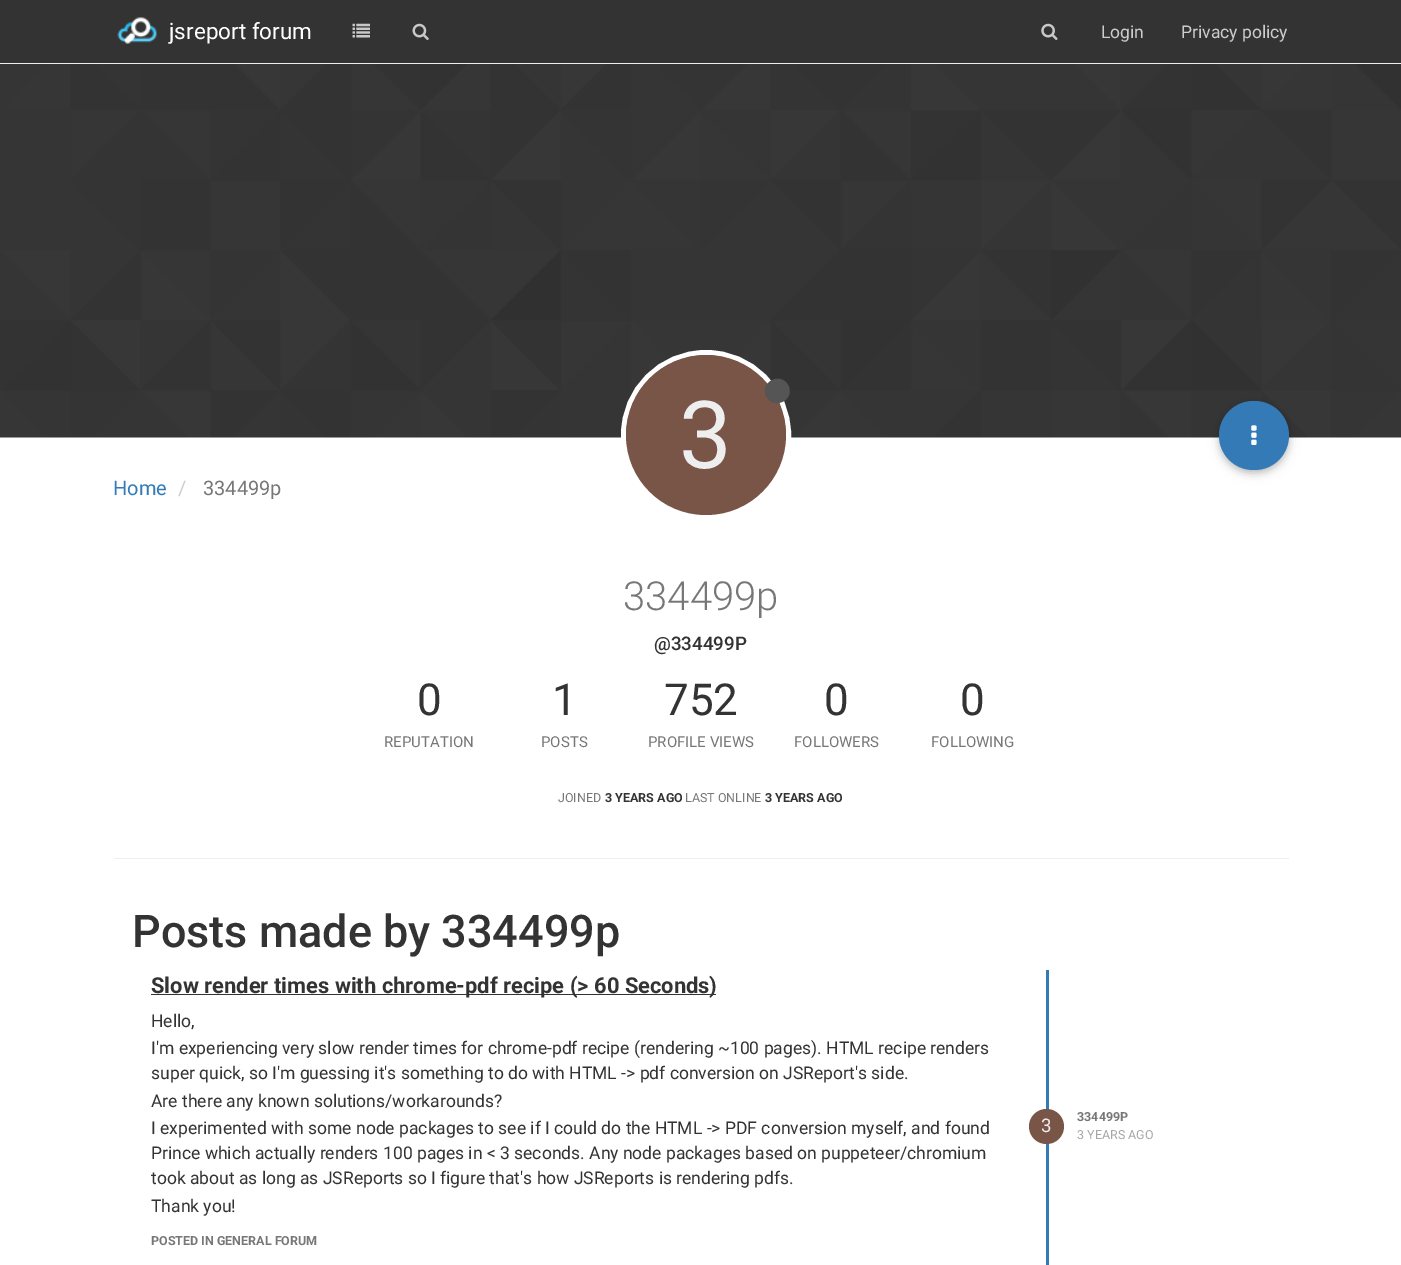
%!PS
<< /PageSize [1401 1265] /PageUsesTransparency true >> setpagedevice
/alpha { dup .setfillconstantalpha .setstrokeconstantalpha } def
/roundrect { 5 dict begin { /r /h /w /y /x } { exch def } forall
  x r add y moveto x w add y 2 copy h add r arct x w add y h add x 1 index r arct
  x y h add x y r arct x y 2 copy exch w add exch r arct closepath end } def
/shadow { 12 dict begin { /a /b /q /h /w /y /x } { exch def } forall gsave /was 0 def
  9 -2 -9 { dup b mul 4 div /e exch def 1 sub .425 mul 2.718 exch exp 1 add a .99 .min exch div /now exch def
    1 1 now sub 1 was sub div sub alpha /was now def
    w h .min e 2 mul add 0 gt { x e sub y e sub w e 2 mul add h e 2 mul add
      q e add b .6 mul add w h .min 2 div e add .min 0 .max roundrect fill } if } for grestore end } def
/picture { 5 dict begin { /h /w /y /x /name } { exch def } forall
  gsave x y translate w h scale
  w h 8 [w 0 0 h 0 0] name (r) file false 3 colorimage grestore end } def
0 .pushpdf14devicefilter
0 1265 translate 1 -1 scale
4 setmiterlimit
1 setgray
0 0 1401 1265 rectfill
0.2 setgray
0 0 1401 63 rectfill
0.933 setgray
0 63 1401 1 rectfill
(img1.rgb) 117 17 41 27 picture
/Roboto-Regular [22.5 0 0 -22.5 0 0] selectfont
1 setgray
169 39 moveto (jsreport forum) show
(img2.rgb) 352 23 18 15 picture
(img3.rgb) 412 23 17 17 picture
(img4.rgb) 1041 23 17 17 picture
/Roboto-Regular [17.5 0 0 -17.5 0 0] selectfont
0.8 setgray
1101 38 moveto (Login) show
1181 38 moveto (Privacy policy) show
(img5.rgb) 0 64 1401 374 picture
1 setgray
5 setlinewidth
newpath 706 435 82.5 0 360 arc closepath stroke
0.475 0.333 0.282 setrgbcolor
newpath 706 435 80 0 360 arc closepath fill
0.333 setgray
newpath 788 385 moveto 796 398.5 775 411 766.5 397 curveto 758.5 383 780 371 788 385 curveto closepath fill
/Roboto-Regular [94 0 0 -94 0 0] selectfont
0.933 setgray
679 468 moveto (3) show
0 setgray
1219 404 70 69 34.5 6 0.12 shadow
1219 404 70 69 34.5 3 0.16 shadow
0.2 0.478 0.718 setrgbcolor
1219 401 70 69 34.5 roundrect fill
(img6.rgb) 1251 425 6 20 picture
/Roboto-Regular [20 0 0 -20 0 0] selectfont
113 495 moveto (Home) show
0.8 setgray
178 495 moveto (/) show
0.467 setgray
203 495 moveto (334499p) show
/Roboto-Light [40 0 0 -40 0 0] selectfont
623 610 moveto (334499p) show
/Roboto-Medium [18.75 0 0 -18.75 0 0] selectfont
0.2 setgray
654 650 moveto (@334499P) show
/Roboto-Regular [44 0 0 -44 0 0] selectfont
417 715 moveto (0) show
/Roboto-Regular [15 0 0 -15 0 0] selectfont
0.467 setgray
384 747 moveto (REPUTATION) show
/Roboto-Regular [44 0 0 -44 0 0] selectfont
0.2 setgray
552 715 moveto (1) show
/Roboto-Regular [15 0 0 -15 0 0] selectfont
0.467 setgray
541 747 moveto (POSTS) show
/Roboto-Regular [44 0 0 -44 0 0] selectfont
0.2 setgray
664 715 moveto (752) show
/Roboto-Regular [15 0 0 -15 0 0] selectfont
0.467 setgray
648 747 moveto (PROFILE VIEWS) show
/Roboto-Regular [44 0 0 -44 0 0] selectfont
0.2 setgray
824 715 moveto (0) show
/Roboto-Regular [15 0 0 -15 0 0] selectfont
0.467 setgray
794 747 moveto (FOLLOWERS) show
/Roboto-Regular [44 0 0 -44 0 0] selectfont
0.2 setgray
960 715 moveto (0) show
/Roboto-Regular [15 0 0 -15 0 0] selectfont
0.467 setgray
931 747 moveto (FOLLOWING) show
/Roboto-Regular [12.5 0 0 -12.5 0 0] selectfont
558 802 moveto (JOINED) show
/Roboto-Bold [12.5 0 0 -12.5 0 0] selectfont
0.2 setgray
605 802 moveto (3 YEARS AGO) show
/Roboto-Regular [12.5 0 0 -12.5 0 0] selectfont
0.467 setgray
685 802 moveto (LAST ONLINE) show
/Roboto-Bold [12.5 0 0 -12.5 0 0] selectfont
0.2 setgray
765 802 moveto (3 YEARS AGO) show
0.933 setgray
114 858 1175 1 rectfill
/Roboto-Medium [45 0 0 -45 0 0] selectfont
0.2 setgray
132 947 moveto (Posts made by 334499p) show
0.2 0.478 0.718 setrgbcolor
1046 970 3 295 rectfill
0.2 setgray
151 994 565 1 rectfill
/Roboto-Bold [21.9 0 0 -21.9 0 0] selectfont
151 993 moveto (Slow render times with chrome-pdf recipe \(> 60 Seconds\)) show
/Roboto-Regular [17.5 0 0 -17.5 0 0] selectfont
151 1027 moveto (Hello,) show
151 1054 moveto (I'm experiencing very slow render times for chrome-pdf recipe \(rendering ~100 pages\). HTML recipe renders) show
151 1079 moveto (super quick, so I'm guessing it's something to do with HTML -> pdf conversion on JSReport's side.) show
151 1107 moveto (Are there any known solutions/workarounds?) show
151 1134 moveto (I experimented with some node packages to see if I could do the HTML -> PDF conversion myself, and found) show
151 1159 moveto (Prince which actually renders 100 pages in < 3 seconds. Any node packages based on puppeteer/chromium) show
151 1184 moveto (took about as long as JSReports so I figure that's how JSReports is rendering pdfs.) show
151 1212 moveto (Thank you!) show
0.475 0.333 0.282 setrgbcolor
newpath 1046.5 1126.5 17.5 0 360 arc closepath fill
/Roboto-Regular [18.75 0 0 -18.75 0 0] selectfont
0.933 setgray
1041 1132 moveto (3) show
/Roboto-Bold [12.5 0 0 -12.5 0 0] selectfont
0.467 setgray
1077 1121 moveto (334499P) show
/Roboto-Regular [12.5 0 0 -12.5 0 0] selectfont
0.651 setgray
1077 1139 moveto (3 YEARS AGO) show
/Roboto-Bold [12.5 0 0 -12.5 0 0] selectfont
0.467 setgray
151 1245 moveto (POSTED IN GENERAL FORUM) show
.poppdf14devicefilter showpage
